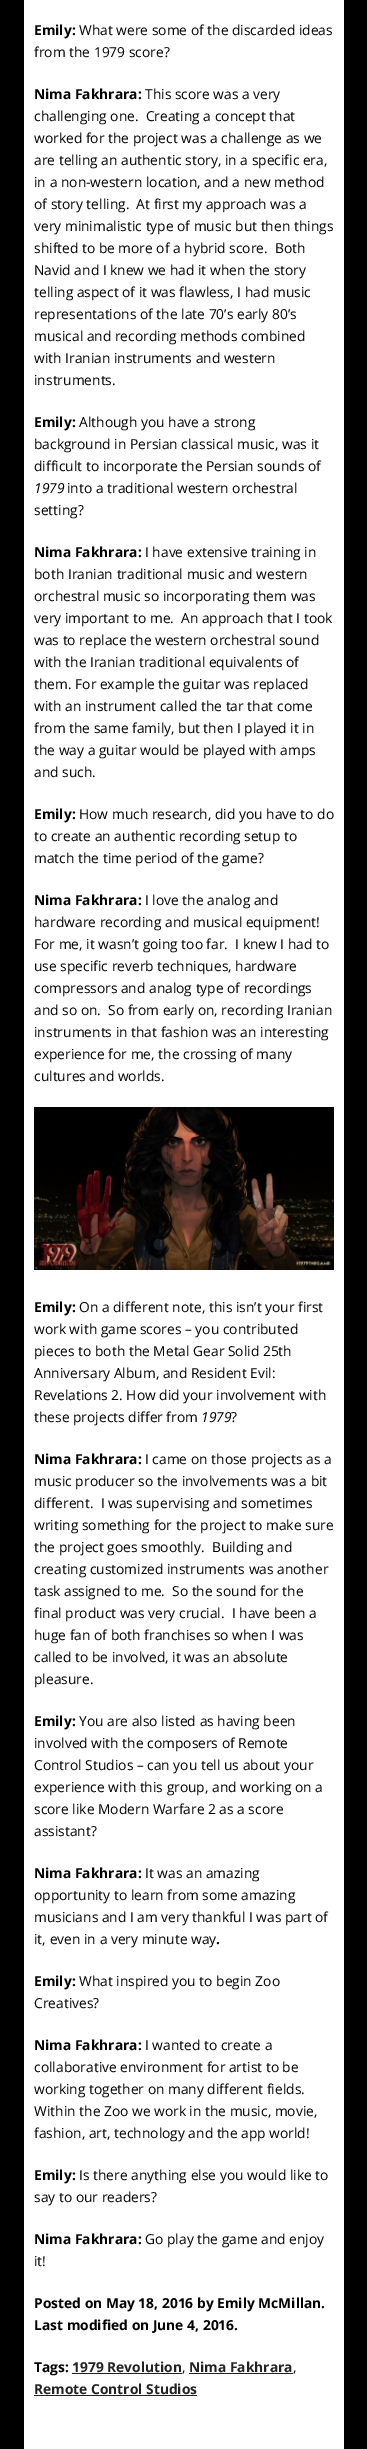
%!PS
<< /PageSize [367 2449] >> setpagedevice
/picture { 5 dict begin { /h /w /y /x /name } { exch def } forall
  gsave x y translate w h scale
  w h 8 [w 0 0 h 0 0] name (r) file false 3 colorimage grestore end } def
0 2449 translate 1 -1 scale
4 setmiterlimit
0 setgray
0 0 367 2449 rectfill
1 setgray
24 0 320 2449 rectfill
/OpenSans-Bold [13.8 0 0 -13.8 0 0] selectfont
0 setgray
34 35 moveto (Emily:) show
/OpenSans-Regular [13.8 0 0 -13.8 0 0] selectfont
79 35 moveto (What were some of the discarded ideas) show
34 57 moveto (from the 1979 score?) show
/OpenSans-Bold [13.8 0 0 -13.8 0 0] selectfont
34 99 moveto (Nima Fakhrara:) show
/OpenSans-Regular [13.8 0 0 -13.8 0 0] selectfont
145 99 moveto (This score was a very) show
34 121 moveto (challenging one.  Creating a concept that) show
34 143 moveto (worked for the project was a challenge as we) show
34 165 moveto (are telling an authentic story, in a specific era,) show
34 187 moveto (in a non-western location, and a new method) show
34 209 moveto (of story telling.  At first my approach was a) show
34 231 moveto (very minimalistic type of music but then things) show
34 253 moveto (shifted to be more of a hybrid score.  Both) show
34 275 moveto (Navid and I knew we had it when the story) show
34 297 moveto (telling aspect of it was flawless, I had music) show
34 319 moveto (representations of the late 70’s early 80’s) show
34 341 moveto (musical and recording methods combined) show
34 363 moveto (with Iranian instruments and western) show
34 385 moveto (instruments.) show
/OpenSans-Bold [13.8 0 0 -13.8 0 0] selectfont
34 427 moveto (Emily:) show
/OpenSans-Regular [13.8 0 0 -13.8 0 0] selectfont
79 427 moveto (Although you have a strong) show
34 449 moveto (background in Persian classical music, was it) show
34 471 moveto (difficult to incorporate the Persian sounds of) show
/OpenSans-Italic [13.8 0 0 -13.8 0 0] selectfont
34 493 moveto (1979) show
/OpenSans-Regular [13.8 0 0 -13.8 0 0] selectfont
67 493 moveto (into a traditional western orchestral) show
34 515 moveto (setting?) show
/OpenSans-Bold [13.8 0 0 -13.8 0 0] selectfont
34 557 moveto (Nima Fakhrara:) show
/OpenSans-Regular [13.8 0 0 -13.8 0 0] selectfont
145 557 moveto (I have extensive training in) show
34 579 moveto (both Iranian traditional music and western) show
34 601 moveto (orchestral music so incorporating them was) show
34 623 moveto (very important to me.  An approach that I took) show
34 645 moveto (was to replace the western orchestral sound) show
34 667 moveto (with the Iranian traditional equivalents of) show
34 689 moveto (them. For example the guitar was replaced) show
34 711 moveto (with an instrument called the tar that come) show
34 733 moveto (from the same family, but then I played it in) show
34 755 moveto (the way a guitar would be played with amps) show
34 777 moveto (and such.) show
/OpenSans-Bold [13.8 0 0 -13.8 0 0] selectfont
34 819 moveto (Emily:) show
/OpenSans-Regular [13.8 0 0 -13.8 0 0] selectfont
79 819 moveto (How much research, did you have to do) show
34 841 moveto (to create an authentic recording setup to) show
34 863 moveto (match the time period of the game?) show
/OpenSans-Bold [13.8 0 0 -13.8 0 0] selectfont
34 905 moveto (Nima Fakhrara:) show
/OpenSans-Regular [13.8 0 0 -13.8 0 0] selectfont
145 905 moveto (I love the analog and) show
34 927 moveto (hardware recording and musical equipment!) show
34 949 moveto (For me, it wasn’t going too far.  I knew I had to) show
34 971 moveto (use specific reverb techniques, hardware) show
34 993 moveto (compressors and analog type of recordings) show
34 1015 moveto (and so on.  So from early on, recording Iranian) show
34 1037 moveto (instruments in that fashion was an interesting) show
34 1059 moveto (experience for me, the crossing of many) show
34 1081 moveto (cultures and worlds.) show
(img1.rgb) 34 1107 300 163 picture
/OpenSans-Bold [13.8 0 0 -13.8 0 0] selectfont
34 1312 moveto (Emily:) show
/OpenSans-Regular [13.8 0 0 -13.8 0 0] selectfont
79 1312 moveto (On a different note, this isn’t your first) show
34 1334 moveto (work with game scores – you contributed) show
34 1356 moveto (pieces to both the Metal Gear Solid 25th) show
34 1378 moveto (Anniversary Album, and Resident Evil:) show
34 1400 moveto (Revelations 2. How did your involvement with) show
34 1422 moveto (these projects differ from) show
/OpenSans-Italic [13.8 0 0 -13.8 0 0] selectfont
201 1422 moveto (1979) show
/OpenSans-Regular [13.8 0 0 -13.8 0 0] selectfont
231 1422 moveto (?) show
/OpenSans-Bold [13.8 0 0 -13.8 0 0] selectfont
34 1464 moveto (Nima Fakhrara:) show
/OpenSans-Regular [13.8 0 0 -13.8 0 0] selectfont
145 1464 moveto (I came on those projects as a) show
34 1486 moveto (music producer so the involvements was a bit) show
34 1508 moveto (different.  I was supervising and sometimes) show
34 1530 moveto (writing something for the project to make sure) show
34 1552 moveto (the project goes smoothly.  Building and) show
34 1574 moveto (creating customized instruments was another) show
34 1596 moveto (task assigned to me.  So the sound for the) show
34 1618 moveto (final product was very crucial.  I have been a) show
34 1640 moveto (huge fan of both franchises so when I was) show
34 1662 moveto (called to be involved, it was an absolute) show
34 1684 moveto (pleasure.) show
/OpenSans-Bold [13.8 0 0 -13.8 0 0] selectfont
34 1726 moveto (Emily:) show
/OpenSans-Regular [13.8 0 0 -13.8 0 0] selectfont
79 1726 moveto (You are also listed as having been) show
34 1748 moveto (involved with the composers of Remote) show
34 1770 moveto (Control Studios – can you tell us about your) show
34 1792 moveto (experience with this group, and working on a) show
34 1814 moveto (score like Modern Warfare 2 as a score) show
34 1836 moveto (assistant?) show
/OpenSans-Bold [13.8 0 0 -13.8 0 0] selectfont
34 1878 moveto (Nima Fakhrara:) show
/OpenSans-Regular [13.8 0 0 -13.8 0 0] selectfont
145 1878 moveto (It was an amazing) show
34 1900 moveto (opportunity to learn from some amazing) show
34 1922 moveto (musicians and I am very thankful I was part of) show
34 1944 moveto (it, even in a very minute way) show
/OpenSans-Bold [13.8 0 0 -13.8 0 0] selectfont
216 1944 moveto (.) show
34 1986 moveto (Emily:) show
/OpenSans-Regular [13.8 0 0 -13.8 0 0] selectfont
79 1986 moveto (What inspired you to begin Zoo) show
34 2008 moveto (Creatives?) show
/OpenSans-Bold [13.8 0 0 -13.8 0 0] selectfont
34 2050 moveto (Nima Fakhrara:) show
/OpenSans-Regular [13.8 0 0 -13.8 0 0] selectfont
145 2050 moveto (I wanted to create a) show
34 2072 moveto (collaborative environment for artist to be) show
34 2094 moveto (working together on many different fields.) show
34 2116 moveto (Within the Zoo we work in the music, movie,) show
34 2138 moveto (fashion, art, technology and the app world!) show
/OpenSans-Bold [13.8 0 0 -13.8 0 0] selectfont
34 2180 moveto (Emily:) show
/OpenSans-Regular [13.8 0 0 -13.8 0 0] selectfont
79 2180 moveto (Is there anything else you would like to) show
34 2202 moveto (say to our readers?) show
/OpenSans-Bold [13.8 0 0 -13.8 0 0] selectfont
34 2244 moveto (Nima Fakhrara:) show
/OpenSans-Regular [13.8 0 0 -13.8 0 0] selectfont
145 2244 moveto (Go play the game and enjoy) show
34 2266 moveto (it!) show
/OpenSans-Bold [13.8 0 0 -13.8 0 0] selectfont
34 2308 moveto (Posted on May 18, 2016 by Emily McMillan.) show
34 2330 moveto (Last modified on June 4, 2016.) show
34 2372 moveto (Tags:) show
0.133 setgray
72 2372 moveto (1979 Revolution) show
72 2373 110 1 rectfill
/OpenSans-Regular [13.8 0 0 -13.8 0 0] selectfont
0 setgray
182 2372 moveto (,) show
/OpenSans-Bold [13.8 0 0 -13.8 0 0] selectfont
0.133 setgray
189 2372 moveto (Nima Fakhrara) show
189 2373 104 1 rectfill
/OpenSans-Regular [13.8 0 0 -13.8 0 0] selectfont
0 setgray
293 2372 moveto (,) show
/OpenSans-Bold [13.8 0 0 -13.8 0 0] selectfont
0.133 setgray
34 2394 moveto (Remote Control Studios) show
34 2395 163 1 rectfill
showpage
